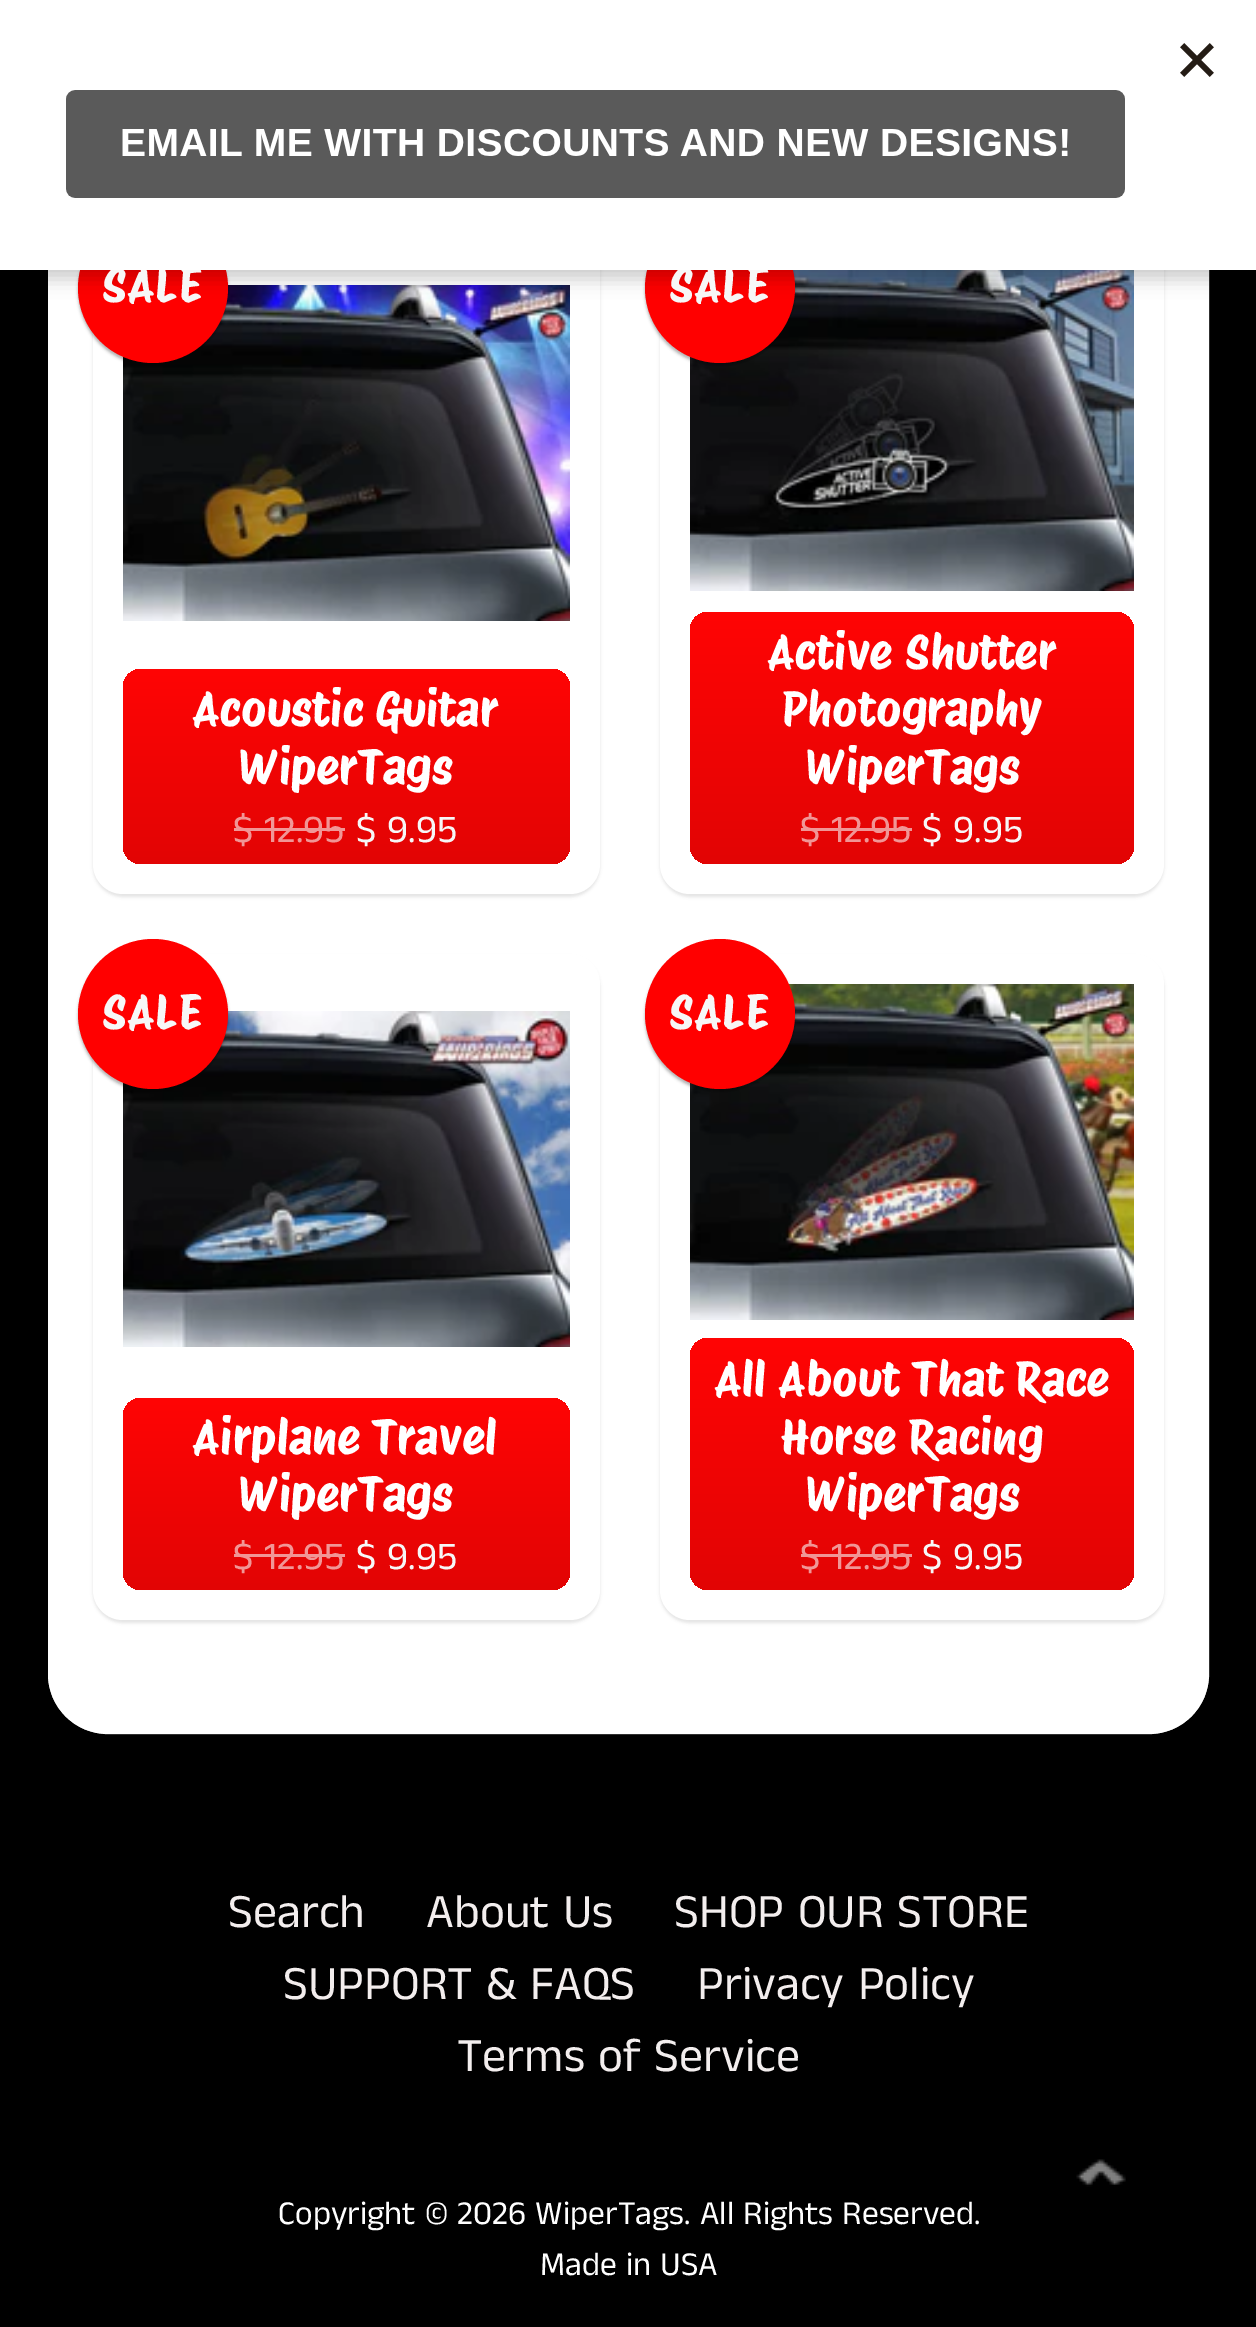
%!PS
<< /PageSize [1256 2327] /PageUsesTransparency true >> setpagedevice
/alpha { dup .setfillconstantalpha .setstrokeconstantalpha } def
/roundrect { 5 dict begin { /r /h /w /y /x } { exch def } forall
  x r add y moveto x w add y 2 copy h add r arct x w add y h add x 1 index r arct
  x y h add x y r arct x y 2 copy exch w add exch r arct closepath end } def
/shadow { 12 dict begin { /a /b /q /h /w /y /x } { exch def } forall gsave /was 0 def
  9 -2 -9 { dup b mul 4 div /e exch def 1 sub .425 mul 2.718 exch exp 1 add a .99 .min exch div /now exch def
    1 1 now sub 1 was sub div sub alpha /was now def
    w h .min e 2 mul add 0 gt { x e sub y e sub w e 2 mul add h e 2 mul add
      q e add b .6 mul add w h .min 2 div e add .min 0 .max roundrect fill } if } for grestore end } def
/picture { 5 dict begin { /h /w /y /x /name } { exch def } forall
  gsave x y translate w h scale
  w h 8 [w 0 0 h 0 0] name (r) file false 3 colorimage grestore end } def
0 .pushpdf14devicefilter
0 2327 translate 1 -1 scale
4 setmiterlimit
0 setgray
0 0 1256 2327 rectfill
1 setgray
48 -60 1161 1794 60 roundrect fill
0.7 alpha
3 setlinewidth
49.5 -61.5 1158 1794 58.5 roundrect stroke
1 alpha
0 setgray
93 231 507 666 30 1.5 0.1 shadow
1 setgray
93 228 507 666 30 roundrect fill
(img2.rgb) 123 285 447 336 picture
0 setgray
78 216 150 150 75 1.5 0.3 shadow
1 0 0 setrgbcolor
newpath 153 288 75 0 360 arc closepath fill
0 setgray
660 231 504 666 30 1.5 0.1 shadow
1 setgray
660 228 504 666 30 roundrect fill
(img3.rgb) 690 270 444 321 picture
0 setgray
645 216 150 150 75 1.5 0.3 shadow
1 0 0 setrgbcolor
newpath 720 288 75 0 360 arc closepath fill
0 setgray
0 9 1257 270 0 9 0.2 shadow
/ProtestRiot-Regular [48 0 0 -48 0 0] selectfont
0.969 setgray
102 302 moveto (SALE) show
669 302 moveto (SALE) show
1 setgray
0 0 1256 270 rectfill
(img1.rgb) 66 43 1148 155 picture
gsave 123 669 447 195 18 roundrect clip newpath
<< /ShadingType 2 /ColorSpace /DeviceRGB /Coords [347 669 347 864] /Extend [true true] /Function << /FunctionType 2 /Domain [0 1] /C0 [1 0.02 0.02] /C1 [0.886 0.016 0.016] /N 1 >> >> shfill grestore
192 726 moveto (Acoustic Guitar) show
238 784 moveto (WiperTags) show
/AnekTamil-Regular [39 0 0 -39 0 0] selectfont
0.945 0.588 0.588 setrgbcolor
233 842 moveto ($ 12.95) show
234 828 111 3 rectfill
0.969 setgray
356 842 moveto ($ 9.95) show
gsave 690 612 444 252 18 roundrect clip newpath
<< /ShadingType 2 /ColorSpace /DeviceRGB /Coords [912 612 912 864] /Extend [true true] /Function << /FunctionType 2 /Domain [0 1] /C0 [1 0.02 0.02] /C1 [0.886 0.016 0.016] /N 1 >> >> shfill grestore
/ProtestRiot-Regular [48 0 0 -48 0 0] selectfont
1 setgray
767 669 moveto (Active Shutter) show
781 726 moveto (Photography) show
805 784 moveto (WiperTags) show
/AnekTamil-Regular [39 0 0 -39 0 0] selectfont
0.945 0.588 0.588 setrgbcolor
800 842 moveto ($ 12.95) show
0.941 0.588 0.588 setrgbcolor
801 828 111 3 rectfill
0.969 setgray
922 842 moveto ($ 9.95) show
0 setgray
93 957 507 666 30 1.5 0.1 shadow
1 setgray
93 954 507 666 30 roundrect fill
(img4.rgb) 123 1011 447 336 picture
0 setgray
78 942 150 150 75 1.5 0.3 shadow
1 0 0 setrgbcolor
newpath 153 1014 75 0 360 arc closepath fill
/ProtestRiot-Regular [48 0 0 -48 0 0] selectfont
0.969 setgray
102 1029 moveto (SALE) show
gsave 123 1398 447 192 18 roundrect clip newpath
<< /ShadingType 2 /ColorSpace /DeviceRGB /Coords [347 1398 347 1590] /Extend [true true] /Function << /FunctionType 2 /Domain [0 1] /C0 [1 0.02 0.02] /C1 [0.886 0.016 0.016] /N 1 >> >> shfill grestore
1 setgray
192 1454 moveto (Airplane Travel) show
238 1511 moveto (WiperTags) show
/AnekTamil-Regular [39 0 0 -39 0 0] selectfont
0.945 0.588 0.588 setrgbcolor
233 1569 moveto ($ 12.95) show
234 1554 111 3 rectfill
0.969 setgray
356 1569 moveto ($ 9.95) show
0 setgray
660 957 504 666 30 1.5 0.1 shadow
1 setgray
660 954 504 666 30 roundrect fill
(img5.rgb) 690 984 444 336 picture
0 setgray
645 942 150 150 75 1.5 0.3 shadow
1 0 0 setrgbcolor
newpath 720 1014 75 0 360 arc closepath fill
/ProtestRiot-Regular [48 0 0 -48 0 0] selectfont
0.969 setgray
669 1029 moveto (SALE) show
gsave 690 1338 444 252 18 roundrect clip newpath
<< /ShadingType 2 /ColorSpace /DeviceRGB /Coords [912 1338 912 1590] /Extend [true true] /Function << /FunctionType 2 /Domain [0 1] /C0 [1 0.02 0.02] /C1 [0.886 0.016 0.016] /N 1 >> >> shfill grestore
1 setgray
714 1396 moveto (All About That Race) show
781 1454 moveto (Horse Racing) show
805 1511 moveto (WiperTags) show
/AnekTamil-Regular [39 0 0 -39 0 0] selectfont
0.945 0.588 0.588 setrgbcolor
800 1569 moveto ($ 12.95) show
0.941 0.588 0.588 setrgbcolor
801 1554 111 3 rectfill
0.969 setgray
922 1569 moveto ($ 9.95) show
/AnekTamil-Regular [48 0 0 -48 0 0] selectfont
0.953 0.933 0.933 setrgbcolor
228 1927 moveto (Search) show
426 1927 moveto (About Us) show
674 1927 moveto (SHOP OUR STORE) show
283 1999 moveto (SUPPORT & FAQS) show
697 1999 moveto (Privacy Policy) show
457 2071 moveto (Terms of Service) show
(img6.rgb) 1076 2159 50 28 picture
/AnekTamil-Regular [33.6 0 0 -33.6 0 0] selectfont
1 setgray
278 2224 moveto (Copyright © 2026 WiperTags. All Rights Reserved.) show
540 2275 moveto (Made in USA) show
.poppdf14devicefilter showpage
